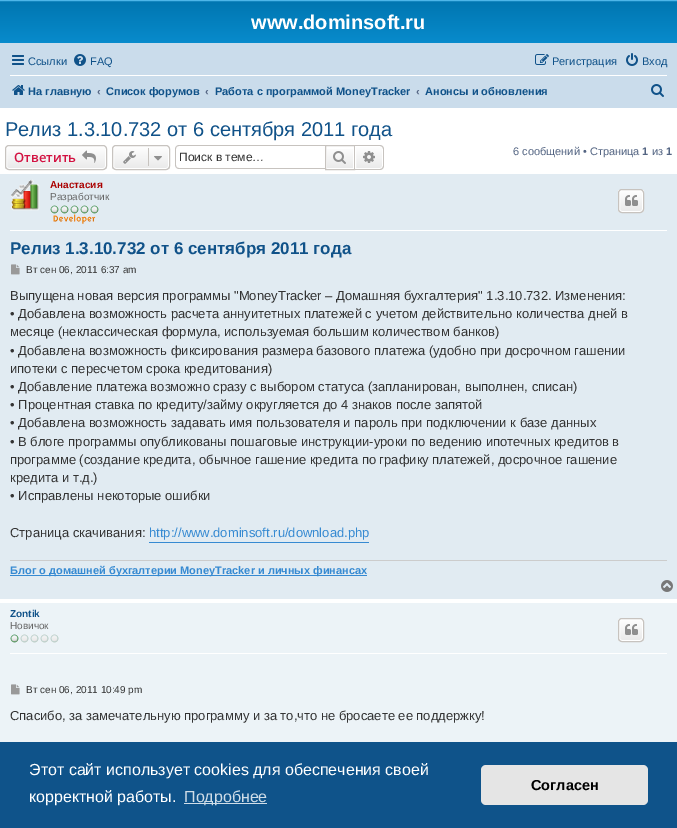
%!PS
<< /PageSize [677 828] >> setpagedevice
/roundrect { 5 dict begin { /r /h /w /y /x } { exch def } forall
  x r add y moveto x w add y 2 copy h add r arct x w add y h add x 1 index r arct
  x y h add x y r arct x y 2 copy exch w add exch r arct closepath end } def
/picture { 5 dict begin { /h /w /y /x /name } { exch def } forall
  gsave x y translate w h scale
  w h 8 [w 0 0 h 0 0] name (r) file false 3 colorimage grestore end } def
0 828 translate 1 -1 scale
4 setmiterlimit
1 setgray
0 0 677 828 rectfill
gsave newpath 0 0 moveto 677 0 lineto 677 43 lineto 0 43 lineto closepath clip newpath
<< /ShadingType 2 /ColorSpace /DeviceRGB /Coords [339 0 339 92] /Extend [true true] /Function << /FunctionType 3 /Domain [0 1] /Functions [<< /FunctionType 2 /Domain [0 1] /C0 [0.416 0.808 1] /C1 [0 0.463 0.694] /N 1 >> << /FunctionType 2 /Domain [0 1] /C0 [0 0.463 0.694] /C1 [0.071 0.639 0.922] /N 1 >>] /Bounds [0.02] /Encode [0 1 0 1] >> >> shfill grestore
/LiberationSans-Bold [20 0 0 -20 0 0] selectfont
251 29 moveto (www.dominsoft.ru) show
0.792 0.863 0.922 setrgbcolor
0 43 677 65 rectfill
(img1.rgb) 12 55 12 10 picture
/LiberationSans-Regular [11 0 0 -11 0 0] selectfont
0.063 0.322 0.537 setrgbcolor
28 65 moveto (Ссылки) show
(img2.rgb) 74 54 12 12 picture
90 65 moveto (FAQ) show
(img3.rgb) 535 54 14 11 picture
552 65 moveto (Регистрация) show
(img4.rgb) 626 53 12 13 picture
642 65 moveto (Вход) show
1 setgray
10 75 657 1 rectfill
(img5.rgb) 12 85 13 10 picture
/LiberationSans-Bold [11 0 0 -11 0 0] selectfont
0.063 0.322 0.537 setrgbcolor
28 95 moveto (На главную) show
0.325 0.392 0.51 setrgbcolor
97 95 moveto (‹) show
0.063 0.322 0.537 setrgbcolor
106 95 moveto (Список форумов) show
0.325 0.392 0.51 setrgbcolor
205 95 moveto (‹) show
0.063 0.322 0.537 setrgbcolor
215 95 moveto (Работа с программой MoneyTracker) show
0.325 0.392 0.51 setrgbcolor
416 95 moveto (‹) show
0.063 0.322 0.537 setrgbcolor
425 95 moveto (Анонсы и обновления) show
(img6.rgb) 651 84 13 13 picture
/LiberationSans-Regular [20 0 0 -20 0 0] selectfont
5 136 moveto (Релиз 1.3.10.732 от 6 сентября 2011 года) show
gsave
5 145 102 25 4 roundrect clip newpath
gsave newpath 5 146 moveto 107 146 lineto 107 169 lineto 5 169 lineto closepath clip newpath
<< /ShadingType 2 /ColorSpace /DeviceRGB /Coords [56 146 56 169] /Extend [true true] /Function << /FunctionType 2 /Domain [0 1] /C0 [1 1 1] /C1 [0.914 0.914 0.914] /N 1 >> >> shfill grestore
grestore
1 setgray
6.5 146.5 99 22 2.5 roundrect stroke
0.78 0.765 0.749 setrgbcolor
5.5 145.5 101 24 3.5 roundrect stroke
/OpenSans-SemiBold [13 0 0 -13 0 0] selectfont
0.827 0.067 0.255 setrgbcolor
14 162 moveto (Ответить) show
(img7.rgb) 82 150 14 13 picture
gsave
112 145 58 25 4 roundrect clip newpath
gsave newpath 112 146 moveto 170 146 lineto 170 169 lineto 112 169 lineto closepath clip newpath
<< /ShadingType 2 /ColorSpace /DeviceRGB /Coords [141 146 141 169] /Extend [true true] /Function << /FunctionType 2 /Domain [0 1] /C0 [1 1 1] /C1 [0.914 0.914 0.914] /N 1 >> >> shfill grestore
grestore
1 setgray
113.5 146.5 55 22 2.5 roundrect stroke
0.78 0.765 0.749 setrgbcolor
112.5 145.5 57 24 3.5 roundrect stroke
(img8.rgb) 123 151 13 13 picture
148 148 1 18 rectfill
(img9.rgb) 154 156 8 5 picture
newpath 179 145 moveto 325 145 lineto 325 169 lineto 179 169 lineto 177 169 175 167 175 165 curveto 175 149 lineto 175 147 177 145 179 145 curveto closepath 179 146 moveto 325 146 lineto 325 168 lineto 179 168 lineto 177 168 176 167 176 165 curveto 176 149 lineto 176 147 177 146 179 146 curveto closepath eofill
/LiberationSans-Regular [12 0 0 -12 0 0] selectfont
0.2 setgray
179 161 moveto (Поиск в теме…) show
gsave newpath 327 149 moveto 353 149 lineto 353 168 lineto 327 168 lineto closepath clip newpath
<< /ShadingType 2 /ColorSpace /DeviceRGB /Coords [340 146 340 169] /Extend [true true] /Function << /FunctionType 2 /Domain [0 1] /C0 [1 1 1] /C1 [0.914 0.914 0.914] /N 1 >> >> shfill grestore
0.78 0.765 0.749 setrgbcolor
325.5 145.5 29 24 rectstroke
(img10.rgb) 333 151 13 13 picture
gsave newpath 355.5 146.5 moveto 380 146.5 lineto 381.5 146.5 382.5 147.5 382.5 149 curveto 382.5 166 lineto 382.5 167.5 381.5 168.5 380 168.5 curveto 355.5 168.5 lineto closepath clip newpath
<< /ShadingType 2 /ColorSpace /DeviceRGB /Coords [369 146 369 169] /Extend [true true] /Function << /FunctionType 2 /Domain [0 1] /C0 [1 1 1] /C1 [0.914 0.914 0.914] /N 1 >> >> shfill grestore
1 setgray
newpath 355.5 146.5 moveto 380 146.5 lineto 381.5 146.5 382.5 147.5 382.5 149 curveto 382.5 166 lineto 382.5 167.5 381.5 168.5 380 168.5 curveto 355.5 168.5 lineto closepath stroke
0.78 0.765 0.749 setrgbcolor
newpath 355 145 moveto 380 145 lineto 382 145 384 147 384 149 curveto 384 166 lineto 384 168 382 170 380 170 curveto 355 170 lineto closepath 355 146 moveto 380 146 lineto 381.5 146 383 147.5 383 149 curveto 383 166 lineto 383 167.5 381.5 169 380 169 curveto 355 169 lineto closepath eofill
(img11.rgb) 363 151 12 12 picture
/LiberationSans-Regular [11 0 0 -11 0 0] selectfont
0.325 0.392 0.51 setrgbcolor
513 155 moveto (6 сообщений • Страница) show
/LiberationSans-Bold [11 0 0 -11 0 0] selectfont
642 155 moveto (1) show
/LiberationSans-Regular [11 0 0 -11 0 0] selectfont
652 155 moveto (из) show
/LiberationSans-Bold [11 0 0 -11 0 0] selectfont
666 155 moveto (1) show
0.882 0.922 0.949 setrgbcolor
0 174 677 425 rectfill
1 setgray
10 230 657 1 rectfill
(img12.rgb) 11 179 29 32 picture
/LiberationSans-Bold [10 0 0 -10 0 0] selectfont
0.667 0 0 setrgbcolor
50 188 moveto (Анастасия) show
/LiberationSans-Regular [10 0 0 -10 0 0] selectfont
0.4 setgray
50 200 moveto (Разработчик) show
(img13.rgb) 50 205 49 19 picture
gsave
618 189 26 24 4 roundrect clip newpath
gsave newpath 618 190 moveto 644 190 lineto 644 212 lineto 618 212 lineto closepath clip newpath
<< /ShadingType 2 /ColorSpace /DeviceRGB /Coords [631 190 631 212] /Extend [true true] /Function << /FunctionType 2 /Domain [0 1] /C0 [1 1 1] /C1 [0.914 0.914 0.914] /N 1 >> >> shfill grestore
grestore
1 setgray
619.5 190.5 23 21 2.5 roundrect stroke
0.78 0.765 0.749 setrgbcolor
618.5 189.5 25 23 3.5 roundrect stroke
(img14.rgb) 625 195 13 11 picture
/LiberationSans-Bold [17 0 0 -17 0 0] selectfont
0.063 0.322 0.537 setrgbcolor
10 254 moveto (Релиз 1.3.10.732 от 6 сентября 2011 года) show
(img15.rgb) 11 264 9 11 picture
/LiberationSans-Regular [10 0 0 -10 0 0] selectfont
0.2 setgray
26 273 moveto (Вт сен 06, 2011 6:37 am) show
/LiberationSans-Regular [13 0 0 -13 0 0] selectfont
10 300 moveto (Выпущена новая версия программы "MoneyTracker – Домашняя бухгалтерия" 1.3.10.732. Изменения:) show
10 318 moveto (• Добавлена возможность расчета аннуитетных платежей с учетом действительно количества дней в) show
10 336 moveto (месяце \(неклассическая формула, используемая большим количеством банков\)) show
10 355 moveto (• Добавлена возможность фиксирования размера базового платежа \(удобно при досрочном гашении) show
10 373 moveto (ипотеки с пересчетом срока кредитования\)) show
10 391 moveto (• Добавление платежа возможно сразу с выбором статуса \(запланирован, выполнен, списан\)) show
10 409 moveto (• Процентная ставка по кредиту/займу округляется до 4 знаков после запятой) show
10 427 moveto (• Добавлена возможность задавать имя пользователя и пароль при подключении к базе данных) show
10 446 moveto (• В блоге программы опубликованы пошаговые инструкции-уроки по ведению ипотечных кредитов в) show
10 464 moveto (программе \(создание кредита, обычное гашение кредита по графику платежей, досрочное гашение) show
10 482 moveto (кредита и т.д.\)) show
10 500 moveto (• Исправлены некоторые ошибки) show
10 537 moveto (Страница скачивания:) show
0.212 0.541 0.824 setrgbcolor
149 542 220 1 rectfill
149 537 moveto (http://www.dominsoft.ru/download.php) show
0.8 setgray
10 560 657 1 rectfill
0.212 0.541 0.824 setrgbcolor
10 575 357 1 rectfill
/LiberationSans-Bold [11 0 0 -11 0 0] selectfont
10 574 moveto (Блог о домашней бухгалтерии MoneyTracker и личных финансах) show
(img16.rgb) 661 580 12 12 picture
0.925 0.953 0.969 setrgbcolor
0 603 677 139 rectfill
1 setgray
10 653 657 1 rectfill
/LiberationSans-Bold [10 0 0 -10 0 0] selectfont
0.063 0.322 0.537 setrgbcolor
10 617 moveto (Zontik) show
/LiberationSans-Regular [10 0 0 -10 0 0] selectfont
0.4 setgray
10 629 moveto (Новичок) show
(img17.rgb) 10 634 49 9 picture
gsave
618 618 26 24 4 roundrect clip newpath
gsave newpath 618 619 moveto 644 619 lineto 644 641 lineto 618 641 lineto closepath clip newpath
<< /ShadingType 2 /ColorSpace /DeviceRGB /Coords [631 619 631 641] /Extend [true true] /Function << /FunctionType 2 /Domain [0 1] /C0 [1 1 1] /C1 [0.914 0.914 0.914] /N 1 >> >> shfill grestore
grestore
1 setgray
619.5 619.5 23 21 2.5 roundrect stroke
0.78 0.765 0.749 setrgbcolor
618.5 618.5 25 23 3.5 roundrect stroke
(img14.rgb) 625 624 13 11 picture
(img18.rgb) 11 684 9 11 picture
0.2 setgray
26 693 moveto (Вт сен 06, 2011 10:49 pm) show
/LiberationSans-Regular [13 0 0 -13 0 0] selectfont
10 720 moveto (Спасибо, за замечательную программу и за то,что не бросаете ее поддержку!) show
0.059 0.325 0.541 setrgbcolor
0 742 677 86 rectfill
/LiberationSans-Regular [16 0 0 -16 0 0] selectfont
1 setgray
29 775 moveto (Этот сайт использует cookies для обеспечения своей) show
29 802 moveto (корректной работы.) show
0.812 0.867 0.91 setrgbcolor
184 803 83 1 rectfill
184 802 moveto (Подробнее) show
0.898 setgray
481 765 167 40 5 roundrect fill
/LiberationSans-Bold [14.5 0 0 -14.5 0 0] selectfont
0 setgray
531 790 moveto (Согласен) show
showpage
